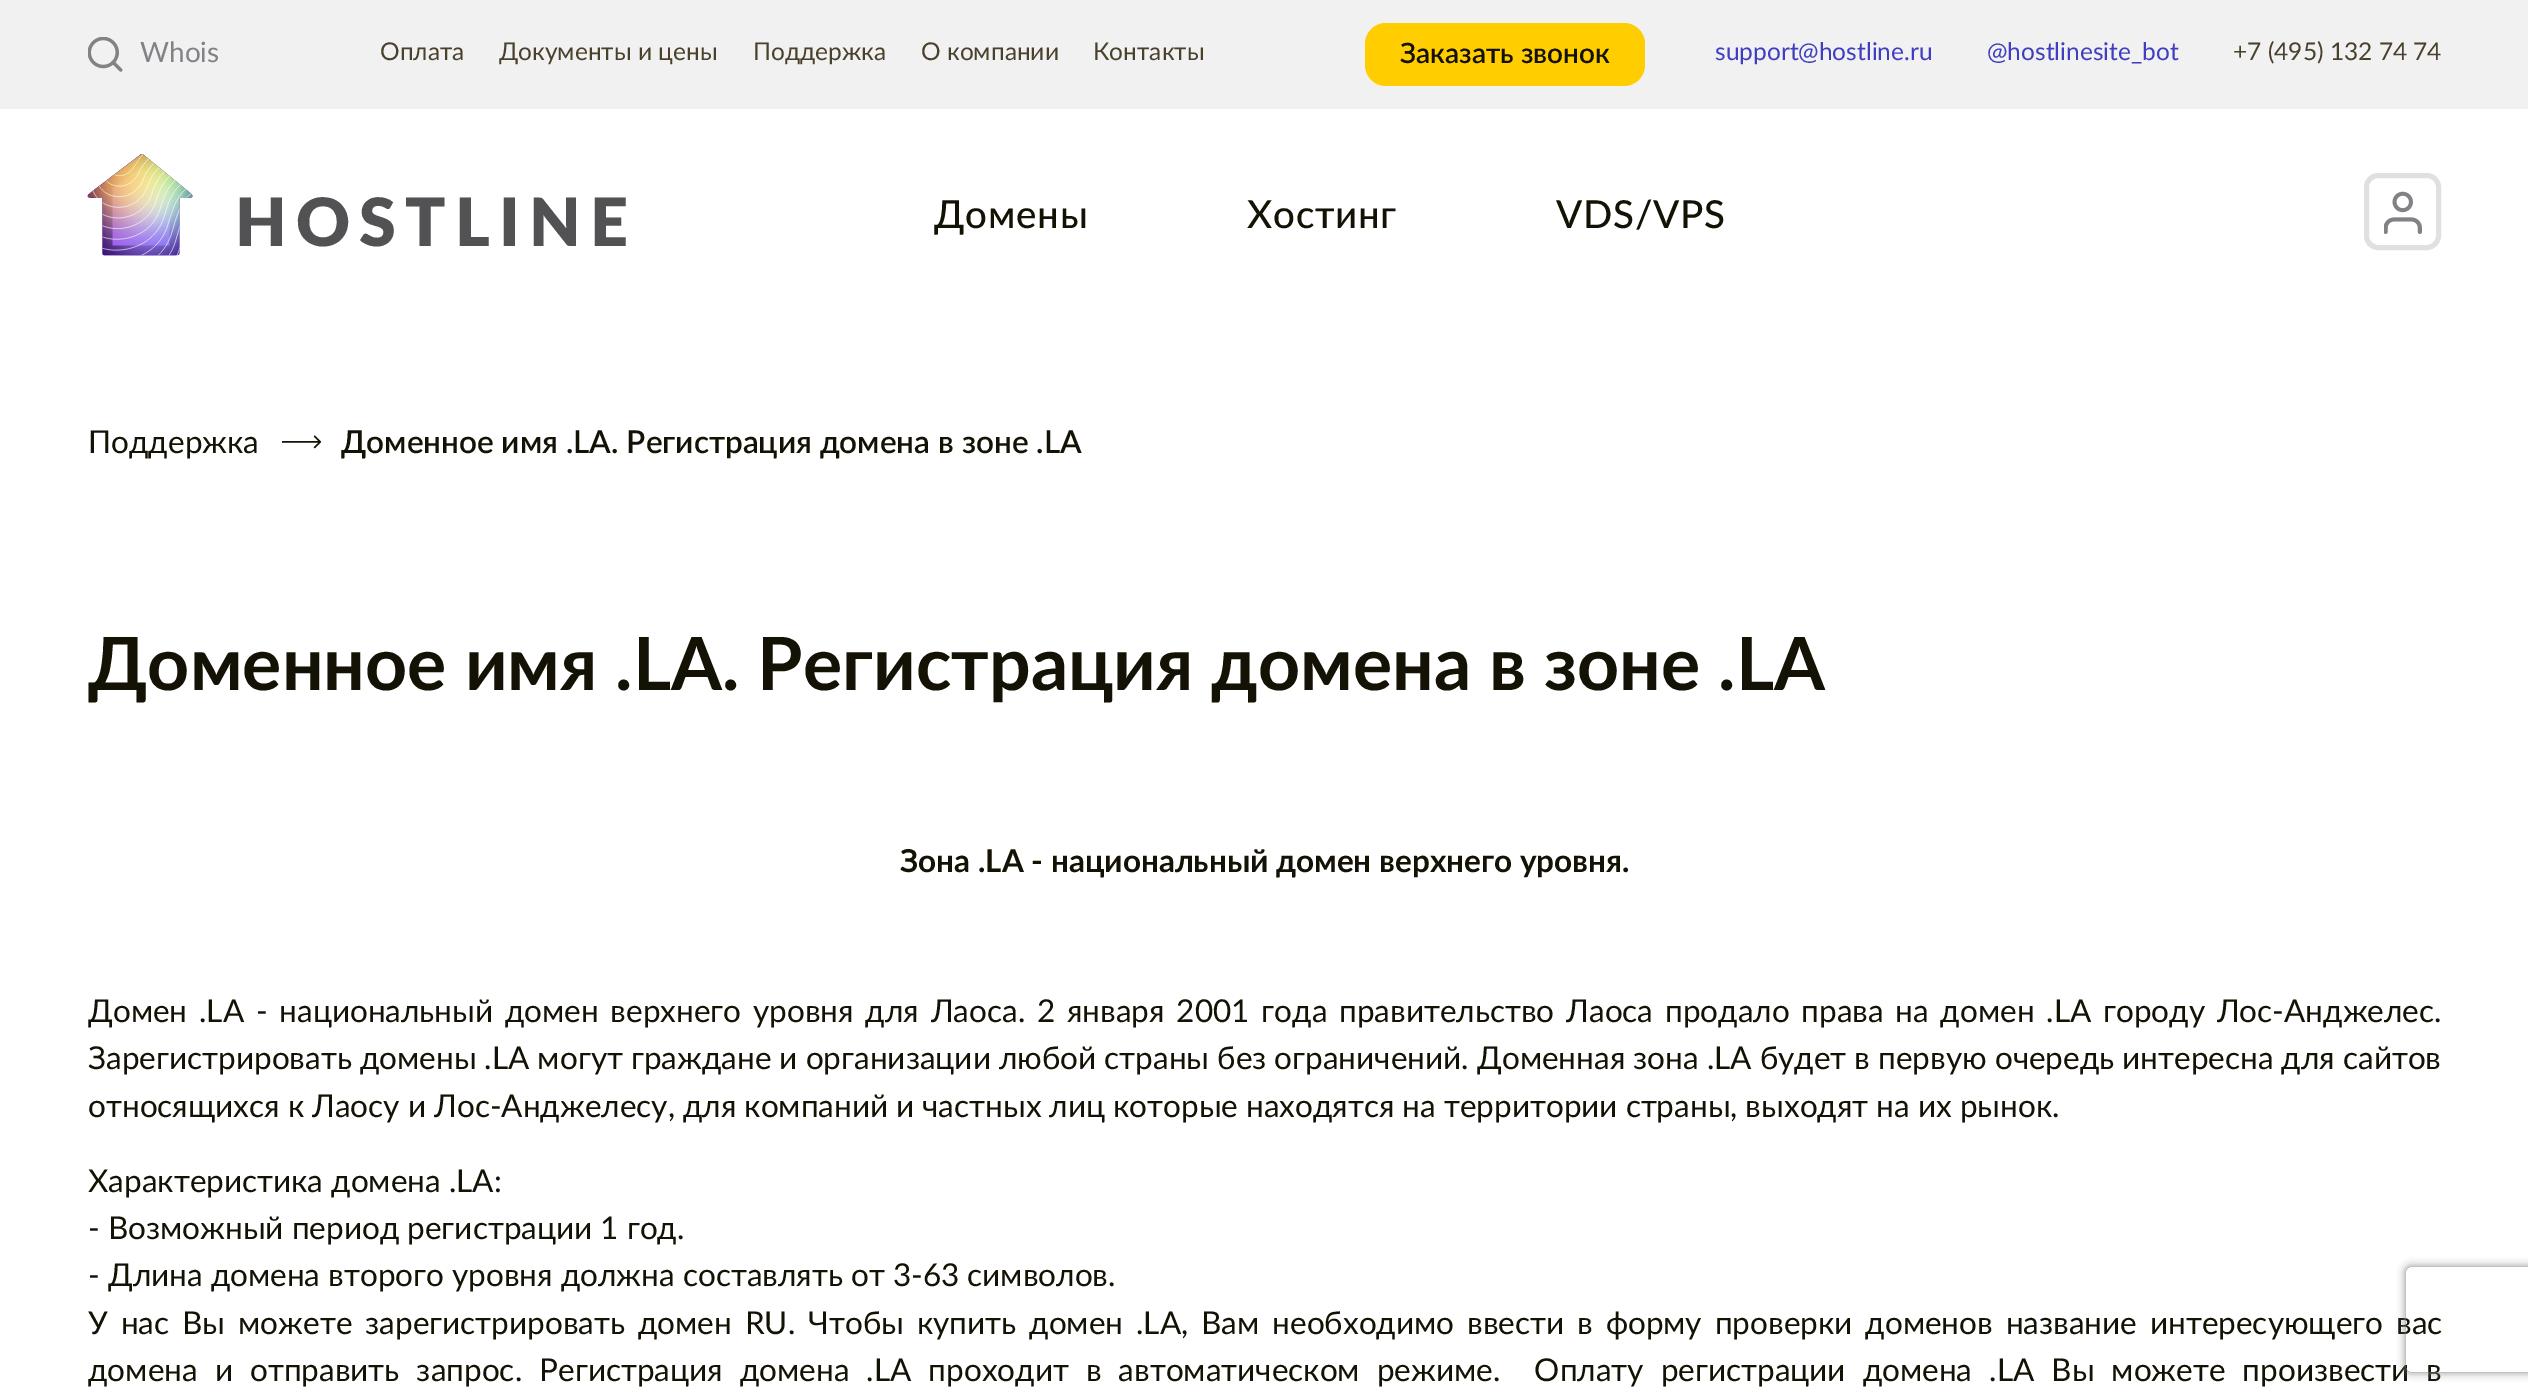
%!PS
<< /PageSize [2528 1395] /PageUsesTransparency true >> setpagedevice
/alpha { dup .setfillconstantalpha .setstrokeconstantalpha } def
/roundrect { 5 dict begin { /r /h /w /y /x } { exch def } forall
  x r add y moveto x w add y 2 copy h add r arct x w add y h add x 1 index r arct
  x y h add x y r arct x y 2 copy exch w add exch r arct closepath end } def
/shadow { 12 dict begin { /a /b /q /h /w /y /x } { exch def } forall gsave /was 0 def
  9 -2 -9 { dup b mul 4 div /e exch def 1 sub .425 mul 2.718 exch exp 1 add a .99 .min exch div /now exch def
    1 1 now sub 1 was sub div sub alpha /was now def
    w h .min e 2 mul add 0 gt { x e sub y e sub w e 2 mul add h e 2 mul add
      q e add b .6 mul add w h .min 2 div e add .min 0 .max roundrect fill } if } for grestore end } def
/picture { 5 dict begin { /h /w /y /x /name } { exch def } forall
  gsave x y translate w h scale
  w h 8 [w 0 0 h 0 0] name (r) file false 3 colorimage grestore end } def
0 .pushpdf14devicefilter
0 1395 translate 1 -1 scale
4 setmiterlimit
1 setgray
0 0 2528 1395 rectfill
0.945 setgray
0 0 2528 109 rectfill
(img1.rgb) 88 37 35 35 picture
/Lato-Regular [28 0 0 -28 0 0] selectfont
0.502 0.51 0.522 setrgbcolor
140 62 moveto (Whois) show
/Lato-Regular [24.5 0 0 -24.5 0 0] selectfont
0.29 0.255 0.173 setrgbcolor
380 60 moveto (Оплата) show
499 60 moveto (Документы и цены) show
753 60 moveto (Поддержка) show
921 60 moveto (О компании) show
1093 60 moveto (Контакты) show
1 0.804 0 setrgbcolor
1365 23 280 63 21 roundrect fill
/Lato-SemiBold [28 0 0 -28 0 0] selectfont
0.078 0.071 0.016 setrgbcolor
1400 63 moveto (Заказать звонок) show
/Lato-Regular [24.5 0 0 -24.5 0 0] selectfont
0.251 0.243 0.753 setrgbcolor
1715 60 moveto (support@hostline.ru) show
1987 60 moveto (@hostlinesite_bot) show
0.29 0.255 0.173 setrgbcolor
2233 60 moveto (+7 \(495\) 132 74 74) show
(img2.rgb) 87 154 106 102 picture
/Lato-Black [66.5 0 0 -66.5 0 0] selectfont
0.322 0.318 0.325 setrgbcolor
235 246 moveto 9.25 0 (HOSTLINE) ashow
/Lato-Medium [38.5 0 0 -38.5 0 0] selectfont
0.078 0.071 0.016 setrgbcolor
934 228 moveto 0.75 0 (Домены) ashow
1247 228 moveto 0.75 0 (Хостинг) ashow
1556 228 moveto 0.75 0 (VDS/VPS) ashow
0.878 setgray
5 setlinewidth
2366.5 175.5 72 72 11.5 roundrect stroke
(img3.rgb) 2384 191 38 43 picture
/Lato-Regular [31.5 0 0 -31.5 0 0] selectfont
0.078 0.071 0.016 setrgbcolor
88 453 moveto (Поддержка) show
(img4.rgb) 282 435 40 14 picture
/Lato-SemiBold [31.5 0 0 -31.5 0 0] selectfont
341 453 moveto (Доменное имя .LA. Регистрация домена в зоне .LA) show
/Lato-Bold [73.5 0 0 -73.5 0 0] selectfont
88 690 moveto (Доменное имя .LA. Регистрация домена в зоне .LA) show
/Lato-Bold [31.5 0 0 -31.5 0 0] selectfont
900 872 moveto (Зона .LA - национальный домен верхнего уровня.) show
/Lato-Regular [31.5 0 0 -31.5 0 0] selectfont
88 1022 moveto 3.7 0 32 (Домен .LA - национальный домен верхнего уровня для Лаоса. 2 января 2001 года правительство Лаоса продало права на домен .LA городу Лос-Анджелес.) widthshow
88 1069 moveto (Зарегистрировать домены .LA могут граждане и организации любой страны без ограничений.) show
1477 1069 moveto (Доменная зона .LA будет в первую очередь интересна для сайтов) show
88 1117 moveto (относящихся к Лаосу и Лос-Анджелесу, для компаний и частных лиц которые находятся на территории страны, выходят на их рынок.) show
88 1192 moveto (Характеристика домена .LA:) show
88 1239 moveto (- Возможный период регистрации 1 год.) show
88 1286 moveto (- Длина домена второго уровня должна составлять от 3-63 символов.) show
88 1334 moveto 4.9 0 32 (У нас Вы можете зарегистрировать домен RU. Чтобы купить домен .LA, Вам необходимо ввести в форму проверки доменов название интересующего вас) widthshow
88 1381 moveto 9 0 32 (домена и отправить запрос. Регистрация домена .LA проходит в автоматическом режиме.  Оплату регистрации домена .LA Вы можете произвести в) widthshow
gsave
newpath 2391 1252 moveto 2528 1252 lineto 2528 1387 lineto 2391 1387 lineto closepath 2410 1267 moveto 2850 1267 lineto 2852 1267 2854 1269 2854 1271 curveto 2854 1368 lineto 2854 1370 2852 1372 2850 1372 curveto 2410 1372 lineto 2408 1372 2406 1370 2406 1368 curveto 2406 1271 lineto 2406 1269 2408 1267 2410 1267 curveto closepath eoclip newpath
0.502 setgray
2406 1267 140 105 4 4.5 1 shadow
grestore
.poppdf14devicefilter showpage
